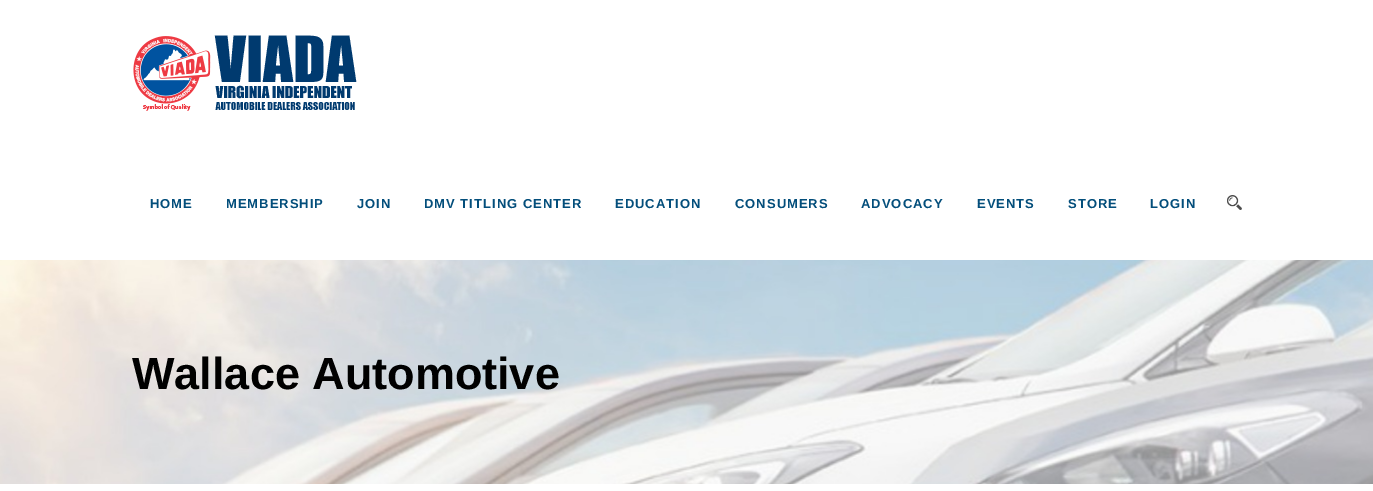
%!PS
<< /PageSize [1373 491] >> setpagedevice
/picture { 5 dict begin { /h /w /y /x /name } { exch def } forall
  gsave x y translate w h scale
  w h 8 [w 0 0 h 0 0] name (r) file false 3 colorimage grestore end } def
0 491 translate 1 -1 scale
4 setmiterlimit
1 setgray
0 0 1373 491 rectfill
(img1.rgb) 133 35 224 76 picture
/LiberationSans-Bold [13 0 0 -13 0 0] selectfont
0.012 0.306 0.482 setrgbcolor
150 208 moveto 1 0 (HOME) ashow
226 208 moveto 1 0 (MEMBERSHIP) ashow
357 208 moveto 1 0 (JOIN) ashow
424 208 moveto 1 0 (DMV TITLING CENTER) ashow
615 208 moveto 1 0 (EDUCATION) ashow
735 208 moveto 1 0 (CONSUMERS) ashow
861 208 moveto 1 0 (ADVOCACY) ashow
977 208 moveto 1 0 (EVENTS) ashow
1068 208 moveto 1 0 (STORE) ashow
1150 208 moveto 1 0 (LOGIN) ashow
(img2.rgb) 1227 195 15 15 picture
(img3.rgb) 0 260 1373 224 picture
/LiberationSans-Bold [45 0 0 -45 0 0] selectfont
0 setgray
132 389 moveto (Wallace Automotive) show
showpage
